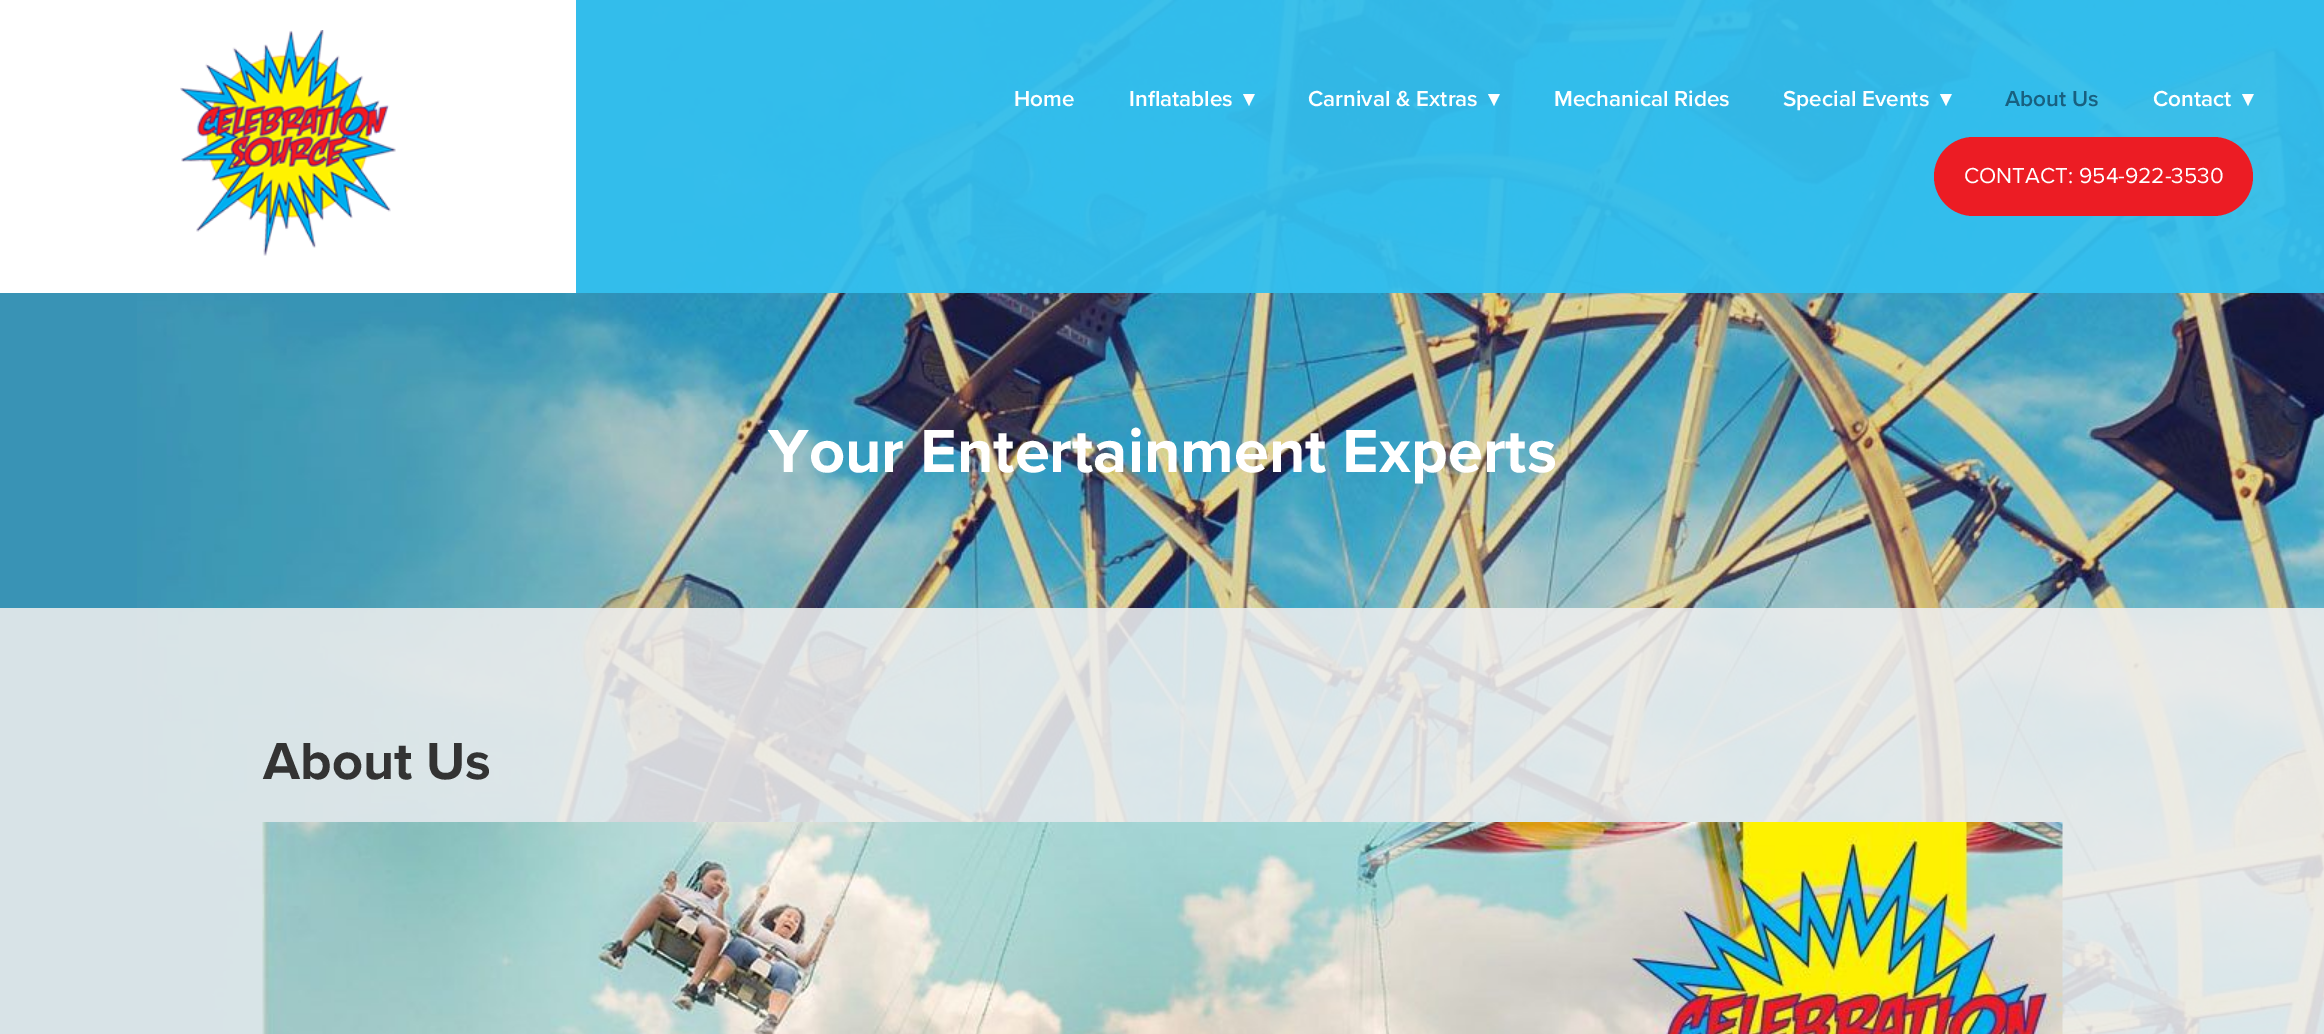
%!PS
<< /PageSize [2324 1034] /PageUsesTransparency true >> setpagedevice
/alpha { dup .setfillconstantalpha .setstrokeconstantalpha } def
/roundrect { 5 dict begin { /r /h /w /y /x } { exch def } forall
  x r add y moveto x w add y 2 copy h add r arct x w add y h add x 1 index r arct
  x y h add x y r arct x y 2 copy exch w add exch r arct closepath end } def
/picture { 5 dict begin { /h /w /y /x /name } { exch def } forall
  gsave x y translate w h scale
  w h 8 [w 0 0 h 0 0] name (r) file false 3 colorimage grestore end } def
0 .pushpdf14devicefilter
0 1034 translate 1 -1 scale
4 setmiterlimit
0.224 0.576 0.71 setrgbcolor
0 0 2324 1034 rectfill
(img1.rgb) 137 0 2187 1034 picture
0.95 alpha
0.2 0.749 0.933 setrgbcolor
576 0 1748 293 rectfill
1 alpha
1 setgray
0 0 576 293 rectfill
(img2.rgb) 180 30 216 226 picture
/ProximaNova-SemiBold [22.5 0 0 -22.5 0 0] selectfont
1014 106 moveto (Home) show
1129 106 moveto (Inflatables) show
/DejaVuSans-Bold [22.5 0 0 -22.5 0 0] selectfont
1243 106 moveto (▾) show
/ProximaNova-SemiBold [22.5 0 0 -22.5 0 0] selectfont
1308 106 moveto (Carnival & Extras) show
/DejaVuSans-Bold [22.5 0 0 -22.5 0 0] selectfont
1488 106 moveto (▾) show
/ProximaNova-SemiBold [22.5 0 0 -22.5 0 0] selectfont
1554 106 moveto (Mechanical Rides) show
1783 106 moveto (Special Events) show
/DejaVuSans-Bold [22.5 0 0 -22.5 0 0] selectfont
1940 106 moveto (▾) show
/ProximaNova-SemiBold [22.5 0 0 -22.5 0 0] selectfont
0.094 0.376 0.502 setrgbcolor
2005 106 moveto (About Us) show
1 setgray
2153 106 moveto (Contact) show
/DejaVuSans-Bold [22.5 0 0 -22.5 0 0] selectfont
2242 106 moveto (▾) show
0.925 0.11 0.141 setrgbcolor
1934 137 319 79 39.5 roundrect fill
/ProximaNova-Regular [22.5 0 0 -22.5 0 0] selectfont
1 setgray
1964 183 moveto (CONTACT: 954-922-3530) show
/ProximaNova-Bold [63 0 0 -63 0 0] selectfont
768 472 moveto (Your Entertainment Experts) show
0.88 alpha
0.933 setgray
0 608 2324 184 rectfill
/ProximaNova-Bold [54 0 0 -54 0 0] selectfont
1 alpha
0.2 setgray
263 779 moveto (About Us) show
0.88 alpha
0.933 setgray
0 792 2324 242 rectfill
1 alpha
(img3.rgb) 262 822 1801 212 picture
.poppdf14devicefilter showpage
